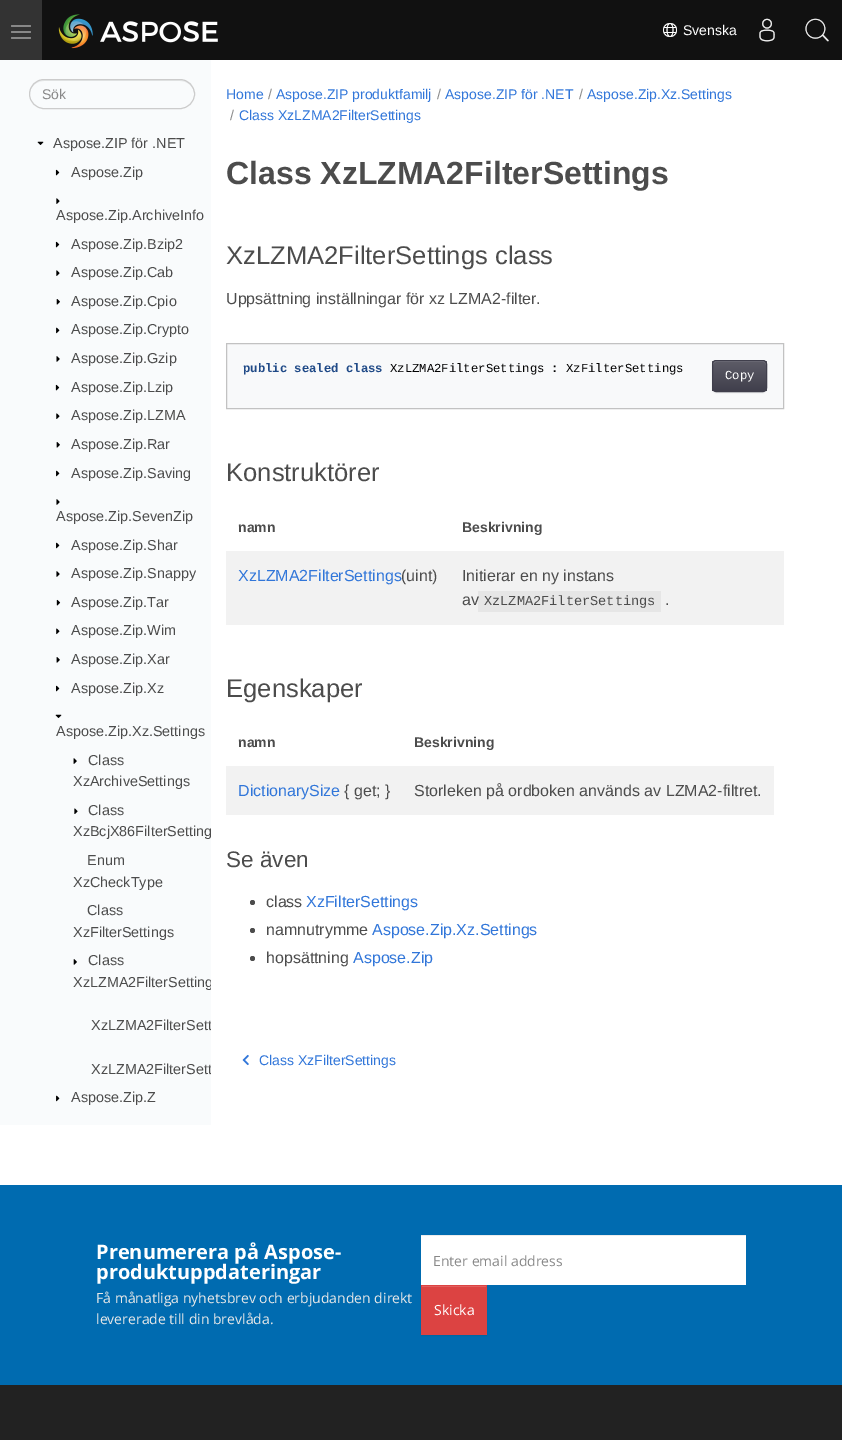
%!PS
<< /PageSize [842 1440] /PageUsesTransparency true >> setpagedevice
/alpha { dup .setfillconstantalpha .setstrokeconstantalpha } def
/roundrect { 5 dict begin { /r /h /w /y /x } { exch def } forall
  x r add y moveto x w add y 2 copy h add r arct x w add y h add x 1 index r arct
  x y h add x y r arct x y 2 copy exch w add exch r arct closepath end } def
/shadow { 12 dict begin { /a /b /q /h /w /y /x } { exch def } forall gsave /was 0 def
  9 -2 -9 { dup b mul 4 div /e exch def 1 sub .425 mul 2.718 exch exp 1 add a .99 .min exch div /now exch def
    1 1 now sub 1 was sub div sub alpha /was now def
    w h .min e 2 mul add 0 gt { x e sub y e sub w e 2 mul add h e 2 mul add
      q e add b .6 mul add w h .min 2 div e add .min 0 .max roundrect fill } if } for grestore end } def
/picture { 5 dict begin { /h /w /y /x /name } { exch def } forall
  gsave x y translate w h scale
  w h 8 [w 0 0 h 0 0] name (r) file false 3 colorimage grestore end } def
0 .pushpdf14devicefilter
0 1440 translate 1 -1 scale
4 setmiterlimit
1 setgray
0 0 842 1440 rectfill
0.067 setgray
42 0 800 60 rectfill
0.2 setgray
0 0 42 60 rectfill
0.533 setgray
11 25 20 2 1 roundrect fill
11 31 20 2 1 roundrect fill
11 37 20 2 1 roundrect fill
(img1.rgb) 58 14 160 35 picture
(img2.rgb) 663 23 14 14 picture
/LiberationSans-Regular [14 0 0 -14 0 0] selectfont
1 setgray
683 35 moveto (Svenska) show
(img3.rgb) 759 18 16 24 picture
(img4.rgb) 805 18 24 24 picture
0.976 0.984 0.988 setrgbcolor
0 60 211 1065 rectfill
0.902 0.91 0.914 setrgbcolor
newpath 44 81 moveto 180 81 lineto 188 81 194 87 194 94 curveto 195 75 168 80 157 80 curveto 67 80 lineto 56 80 29 75 30 94 curveto 30 87 36 81 44 81 curveto closepath fill
0.8 setgray
29.5 79.5 165 29 14.5 roundrect stroke
0.533 setgray
42 99 moveto (Sök) show
(img5.rgb) 37 141 7 4 picture
/LiberationSans-Regular [14.4 0 0 -14.4 0 0] selectfont
0.298 setgray
53 148 moveto (Aspose.ZIP för .NET) show
(img6.rgb) 55 169 5 7 picture
71 177 moveto (Aspose.Zip) show
(img7.rgb) 56 198 4 6 picture
56 220 moveto (Aspose.Zip.ArchiveInfo) show
(img8.rgb) 55 241 5 7 picture
71 249 moveto (Aspose.Zip.Bzip2) show
(img9.rgb) 56 270 4 6 picture
71 277 moveto (Aspose.Zip.Cab) show
(img10.rgb) 56 299 4 6 picture
71 306 moveto (Aspose.Zip.Cpio) show
(img11.rgb) 56 327 4 7 picture
71 334 moveto (Aspose.Zip.Crypto) show
(img12.rgb) 56 356 4 6 picture
71 363 moveto (Aspose.Zip.Gzip) show
(img13.rgb) 55 384 5 7 picture
71 392 moveto (Aspose.Zip.Lzip) show
(img14.rgb) 56 413 4 6 picture
71 420 moveto (Aspose.Zip.LZMA) show
(img15.rgb) 56 442 4 6 picture
71 449 moveto (Aspose.Zip.Rar) show
(img16.rgb) 56 470 4 7 picture
71 478 moveto (Aspose.Zip.Saving) show
(img17.rgb) 56 499 4 6 picture
56 521 moveto (Aspose.Zip.SevenZip) show
(img18.rgb) 56 542 4 7 picture
71 550 moveto (Aspose.Zip.Shar) show
(img19.rgb) 56 571 4 6 picture
71 578 moveto (Aspose.Zip.Snappy) show
(img20.rgb) 56 599 5 7 picture
71 607 moveto (Aspose.Zip.Tar) show
(img21.rgb) 56 628 4 7 picture
71 635 moveto (Aspose.Zip.Wim) show
(img22.rgb) 56 657 4 6 picture
71 664 moveto (Aspose.Zip.Xar) show
(img23.rgb) 56 685 4 7 picture
71 693 moveto (Aspose.Zip.Xz) show
(img5.rgb) 55 714 7 4 picture
56 736 moveto (Aspose.Zip.Xz.Settings) show
(img24.rgb) 73 758 4 6 picture
88 765 moveto (Class) show
73 786 moveto (XzArchiveSettings) show
(img25.rgb) 74 808 4 6 picture
88 815 moveto (Class) show
gsave
15 60 196 1065 rectclip
73 836 moveto (XzBcjX86FilterSetting) show
grestore
87 865 moveto (Enum) show
73 887 moveto (XzCheckType) show
87 915 moveto (Class) show
73 937 moveto (XzFilterSettings) show
(img26.rgb) 73 959 4 6 picture
88 965 moveto (Class) show
gsave
15 60 196 1065 rectclip
73 987 moveto (XzLZMA2FilterSetting) show
91 1030 moveto (XzLZMA2FilterSett) show
91 1074 moveto (XzLZMA2FilterSett) show
grestore
(img27.rgb) 56 1095 4 7 picture
71 1102 moveto (Aspose.Zip.Z) show
/LiberationSans-Regular [14 0 0 -14 0 0] selectfont
0.192 0.463 0.851 setrgbcolor
226 99 moveto (Home) show
0.533 setgray
268 99 moveto (/) show
0.192 0.463 0.851 setrgbcolor
276 99 moveto (Aspose.ZIP produktfamilj) show
0.533 setgray
437 99 moveto (/) show
0.192 0.463 0.851 setrgbcolor
445 99 moveto (Aspose.ZIP för .NET) show
0.533 setgray
579 99 moveto (/) show
0.192 0.463 0.851 setrgbcolor
587 99 moveto (Aspose.Zip.Xz.Settings) show
0.533 setgray
230 120 moveto (/) show
0.192 0.463 0.851 setrgbcolor
239 120 moveto (Class XzLZMA2FilterSettings) show
/LiberationSans-Bold [32 0 0 -32 0 0] selectfont
0.298 setgray
226 184 moveto (Class XzLZMA2FilterSettings) show
/LiberationSans-Regular [25.6 0 0 -25.6 0 0] selectfont
226 264 moveto (XzLZMA2FilterSettings class) show
/LiberationSans-Regular [16 0 0 -16 0 0] selectfont
226 304 moveto (Uppsättning inställningar för xz LZMA2-filter.) show
0.973 0.976 0.98 setrgbcolor
newpath 226.5 343.5 moveto 783.5 343.5 lineto 783.5 408.5 lineto 226.5 408.5 lineto closepath gsave fill grestore
0.761 setgray
stroke
/LiberationMono-Bold [12.25 0 0 -12.25 0 0] selectfont
0.125 0.29 0.529 setrgbcolor
243 372 moveto (public sealed class) show
/LiberationMono-Regular [12.25 0 0 -12.25 0 0] selectfont
0 setgray
390 372 moveto (XzLZMA2FilterSettings) show
/LiberationMono-Bold [12.25 0 0 -12.25 0 0] selectfont
551 372 moveto (:) show
/LiberationMono-Regular [12.25 0 0 -12.25 0 0] selectfont
566 372 moveto (XzFilterSettings) show
712 361 55 32 4 0.5 0.07 shadow
gsave
712 360 55 32 4 roundrect clip newpath
gsave newpath 712 361 moveto 767 361 lineto 767 391 lineto 712 391 lineto closepath clip newpath
<< /ShadingType 2 /ColorSpace /DeviceRGB /Coords [740 361 740 391] /Extend [true true] /Function << /FunctionType 2 /Domain [0 1] /C0 [0.365 0.361 0.404] /C1 [0.251 0.247 0.298] /N 1 >> >> shfill grestore
grestore
0.459 0.455 0.494 setrgbcolor
newpath 716 362 moveto 763 362 lineto 765 362 766 363 766 365 curveto 766 359 760 361 755 361 curveto 724 361 lineto 719 361 713 359 713 365 curveto 713 363 714 362 716 362 curveto closepath fill
0.251 0.247 0.298 setrgbcolor
712.5 360.5 54 31 3.5 roundrect stroke
1 setgray
725 379 moveto (Copy) show
/LiberationSans-Regular [25.6 0 0 -25.6 0 0] selectfont
0.298 setgray
226 481 moveto (Konstruktörer) show
/LiberationSans-Bold [14 0 0 -14 0 0] selectfont
238 532 moveto (namn) show
462 532 moveto (Beskrivning) show
0.949 setgray
226 551 558 74 rectfill
/LiberationSans-Regular [16 0 0 -16 0 0] selectfont
0.192 0.463 0.851 setrgbcolor
238 581 moveto (XzLZMA2FilterSettings) show
0.298 setgray
401 581 moveto (\(uint\)) show
462 581 moveto (Initierar en ny instans) show
462 605 moveto (av) show
0.05 alpha
0 setgray
478 591 183 21 rectfill
/LiberationMono-Regular [13.6 0 0 -13.6 0 0] selectfont
1 alpha
0.298 setgray
484 605 moveto (XzLZMA2FilterSettings) show
/LiberationSans-Regular [16 0 0 -16 0 0] selectfont
665 605 moveto (.) show
/LiberationSans-Regular [25.6 0 0 -25.6 0 0] selectfont
226 697 moveto (Egenskaper) show
/LiberationSans-Bold [14 0 0 -14 0 0] selectfont
238 747 moveto (namn) show
414 747 moveto (Beskrivning) show
0.949 setgray
226 766 548 49 rectfill
/LiberationSans-Regular [16 0 0 -16 0 0] selectfont
0.192 0.463 0.851 setrgbcolor
238 796 moveto (DictionarySize) show
0.298 setgray
344 796 moveto ({ get; }) show
414 796 moveto (Storleken på ordboken används av LZMA2-filtret.) show
/LiberationSans-Regular [22.5 0 0 -22.5 0 0] selectfont
226 867 moveto (Se även) show
newpath 252.5 902.5 2.5 0 360 arc closepath fill
/LiberationSans-Regular [16 0 0 -16 0 0] selectfont
266 907 moveto (class) show
0.192 0.463 0.851 setrgbcolor
306 907 moveto (XzFilterSettings) show
0.298 setgray
newpath 252.5 930.5 2.5 0 360 arc closepath fill
266 935 moveto (namnutrymme) show
0.192 0.463 0.851 setrgbcolor
372 935 moveto (Aspose.Zip.Xz.Settings) show
0.298 setgray
newpath 252.5 958.5 2.5 0 360 arc closepath fill
266 963 moveto (hopsättning) show
0.192 0.463 0.851 setrgbcolor
353 963 moveto (Aspose.Zip) show
(img28.rgb) 242 1054 7 12 picture
/LiberationSans-Regular [14 0 0 -14 0 0] selectfont
259 1065 moveto (Class XzFilterSettings) show
0 0.42 0.69 setrgbcolor
0 1185 842 200 rectfill
/OpenSans-Bold [20 0 0 -20 0 0] selectfont
1 setgray
96 1259 moveto (Prenumerera på Aspose-) show
96 1279 moveto (produktuppdateringar) show
/OpenSans-Regular [14 0 0 -14 0 0] selectfont
0.91 setgray
96 1303 moveto (Få månatliga nyhetsbrev och erbjudanden direkt) show
96 1324 moveto (levererade till din brevlåda.) show
1 setgray
421 1236 325 49 rectfill
0.925 setgray
421 1235 325 1 rectfill
0.533 setgray
433 1266 moveto (Enter email address) show
0 setgray
421 1286 66 50 0 0.5 0.07 shadow
0.863 0.263 0.259 setrgbcolor
421 1285 66 50 rectfill
0.882 0.373 0.369 setrgbcolor
422 1286 64 1 rectfill
1 setgray
434 1315 moveto (Skicka) show
gsave newpath 0 1385 moveto 842 1385 lineto 842 1440 lineto 0 1440 lineto closepath clip newpath
<< /ShadingType 2 /ColorSpace /DeviceRGB /Coords [421 1385 421 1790] /Extend [true true] /Function << /FunctionType 3 /Domain [0 1] /Functions [<< /FunctionType 2 /Domain [0 1] /C0 [0.133 0.133 0.133] /C1 [0.133 0.133 0.133] /N 1 >> << /FunctionType 2 /Domain [0 1] /C0 [0.133 0.133 0.133] /C1 [0.267 0.267 0.267] /N 1 >>] /Bounds [0.3] /Encode [0 1 0 1] >> >> shfill grestore
.poppdf14devicefilter showpage
